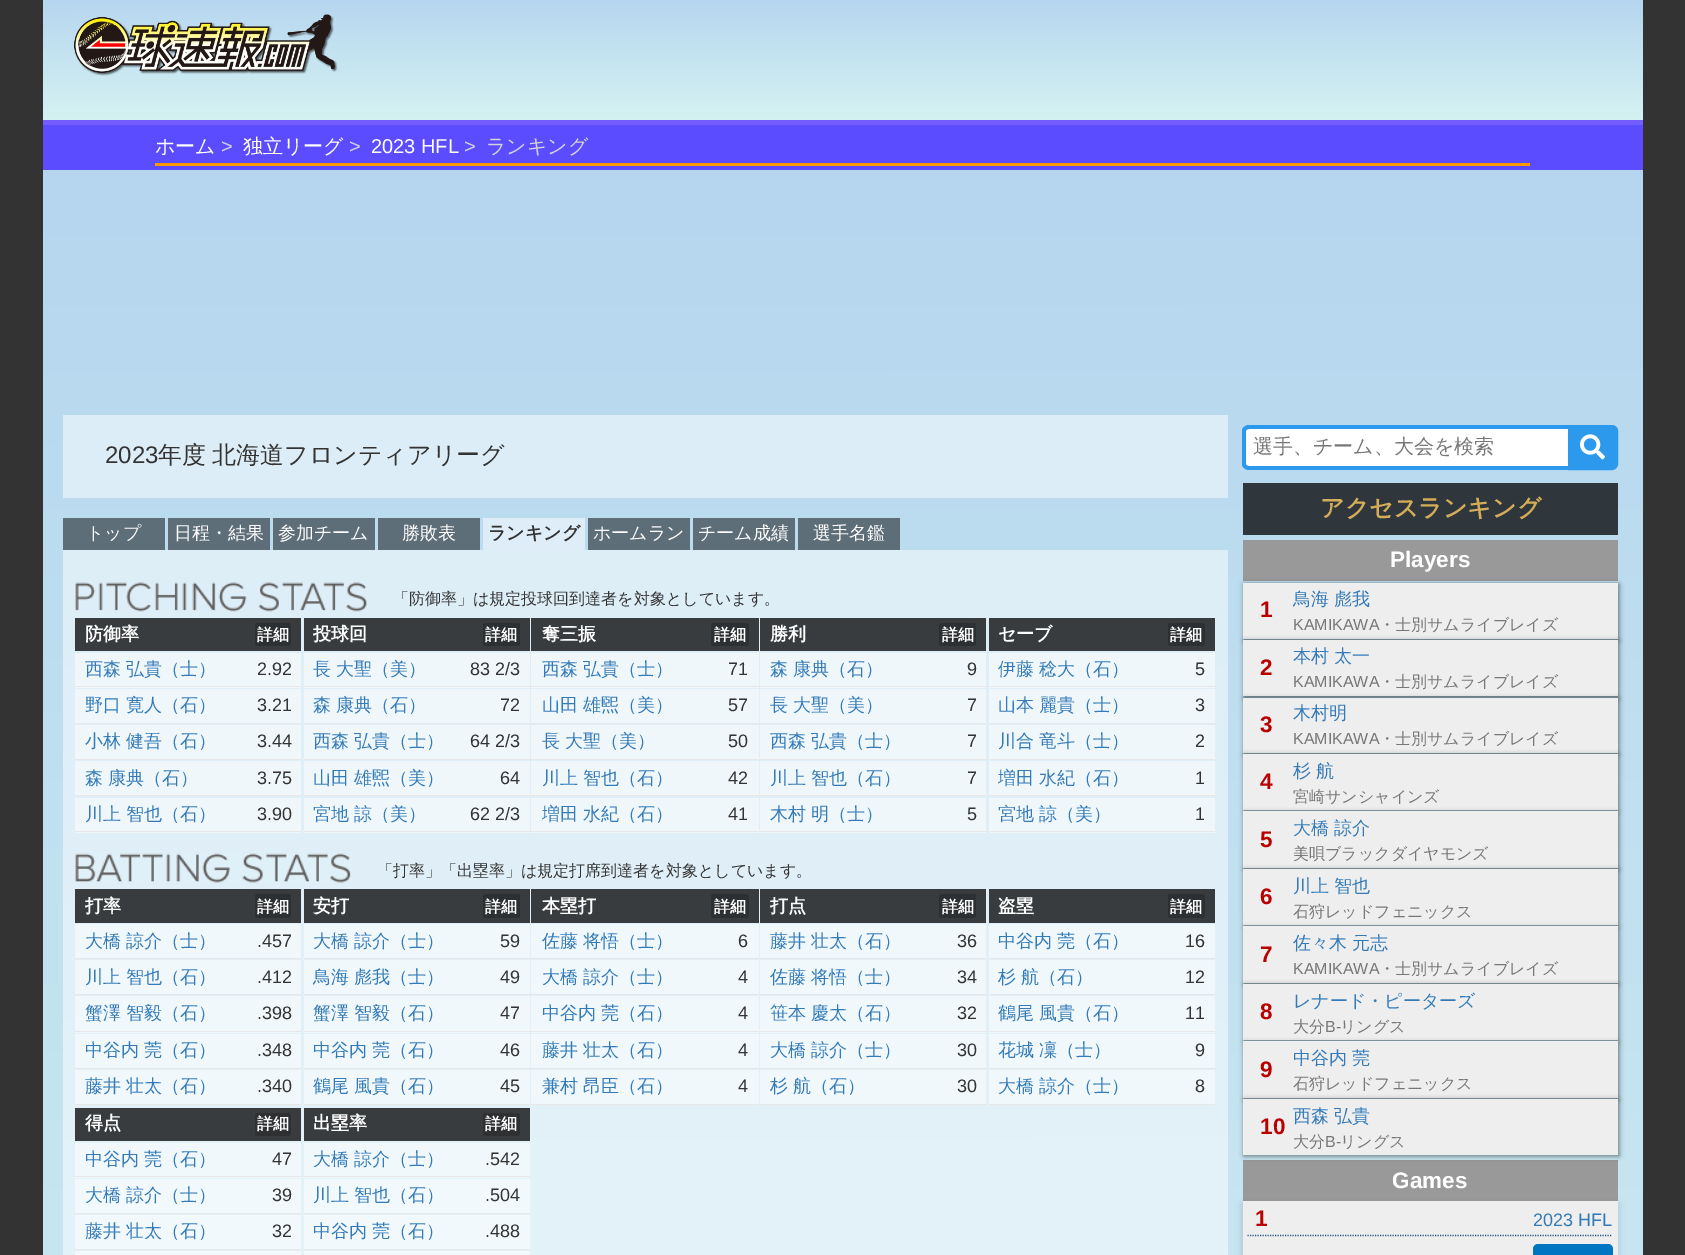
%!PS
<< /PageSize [1685 1255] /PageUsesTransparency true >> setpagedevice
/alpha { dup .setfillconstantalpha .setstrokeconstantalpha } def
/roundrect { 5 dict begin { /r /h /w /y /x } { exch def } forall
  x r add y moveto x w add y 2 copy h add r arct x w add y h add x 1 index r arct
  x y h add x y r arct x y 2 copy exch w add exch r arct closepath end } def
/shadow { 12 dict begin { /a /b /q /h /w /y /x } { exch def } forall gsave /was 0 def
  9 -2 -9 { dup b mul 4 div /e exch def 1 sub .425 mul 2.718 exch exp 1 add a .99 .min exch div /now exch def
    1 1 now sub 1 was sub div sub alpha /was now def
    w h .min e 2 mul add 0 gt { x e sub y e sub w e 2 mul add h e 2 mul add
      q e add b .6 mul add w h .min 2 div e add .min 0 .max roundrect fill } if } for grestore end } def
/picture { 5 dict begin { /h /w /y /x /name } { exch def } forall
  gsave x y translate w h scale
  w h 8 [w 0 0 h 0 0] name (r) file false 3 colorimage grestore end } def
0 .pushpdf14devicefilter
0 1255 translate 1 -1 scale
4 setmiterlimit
0.2 setgray
0 0 1685 1255 rectfill
gsave newpath 43 0 moveto 1643 0 lineto 1643 120 lineto 43 120 lineto closepath clip newpath
<< /ShadingType 2 /ColorSpace /DeviceRGB /Coords [843 0 843 120] /Extend [true true] /Function << /FunctionType 2 /Domain [0 1] /C0 [0.714 0.839 0.937] /C1 [0.835 0.949 0.949] /N 1 >> >> shfill grestore
0.455 0.365 1 setrgbcolor
43 120 1600 5 rectfill
(img1.rgb) 74 14 264 62 picture
0.357 0.298 1 setrgbcolor
43 125 1600 45 rectfill
1 0.6 0 setrgbcolor
155 163 1375 3 rectfill
/WenQuanYiZenHei-Medium [20 0 0 -20 0 0] selectfont
1 setgray
155 153 moveto (ホーム) show
/LiberationSans-Regular [20 0 0 -20 0 0] selectfont
0.827 0.827 0.847 setrgbcolor
221 153 moveto (>) show
/WenQuanYiZenHei-Medium [20 0 0 -20 0 0] selectfont
1 setgray
243 153 moveto (独立リーグ) show
/LiberationSans-Regular [20 0 0 -20 0 0] selectfont
0.827 0.827 0.847 setrgbcolor
349 153 moveto (>) show
1 setgray
371 153 moveto (2023 HFL) show
0.827 0.827 0.847 setrgbcolor
464 153 moveto (>) show
/WenQuanYiZenHei-Medium [20 0 0 -20 0 0] selectfont
486 153 moveto (ランキング) show
gsave newpath 43 170 moveto 1643 170 lineto 1643 1255 lineto 43 1255 lineto closepath clip newpath
<< /ShadingType 2 /ColorSpace /DeviceRGB /Coords [842 170 843 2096] /Extend [true true] /Function << /FunctionType 2 /Domain [0 1] /C0 [0.714 0.839 0.937] /C1 [0.835 0.949 0.949] /N 1 >> >> shfill grestore
gsave newpath 63 550 moveto 1228 550 lineto 1228 1255 lineto 63 1255 lineto closepath clip newpath
<< /ShadingType 2 /ColorSpace /DeviceRGB /Coords [842 170 843 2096] /Extend [true true] /Function << /FunctionType 2 /Domain [0 1] /C0 [0.859 0.922 0.969] /C1 [0.918 0.976 0.976] /N 1 >> >> shfill grestore
0.867 0.929 0.969 setrgbcolor
63 415 1165 83 rectfill
/LiberationSans-Regular [24 0 0 -24 0 0] selectfont
0.2 setgray
105 463 moveto (2023) show
/WenQuanYiZenHei-Medium [24 0 0 -24 0 0] selectfont
158 463 moveto -1 0 32 (年度 北海道フロンティアリーグ) widthshow
0.369 0.431 0.471 setrgbcolor
63 518 102 32 rectfill
/WenQuanYiZenHei-Medium [18 0 0 -18 0 0] selectfont
1 setgray
86 539 moveto (トップ) show
0.369 0.431 0.471 setrgbcolor
168 518 102 32 rectfill
1 setgray
174 539 moveto (日程・結果) show
0.369 0.431 0.471 setrgbcolor
273 518 102 32 rectfill
1 setgray
278 539 moveto (参加チーム) show
0.369 0.431 0.471 setrgbcolor
378 518 102 32 rectfill
1 setgray
402 539 moveto (勝敗表) show
0.871 0.929 0.973 setrgbcolor
483 518 102 32 rectfill
/WenQuanYiZenHei-Bold [18 0 0 -18 0 0] selectfont
0.2 setgray
488 539 moveto (ランキング) show
0.369 0.431 0.471 setrgbcolor
588 518 102 32 rectfill
/WenQuanYiZenHei-Medium [18 0 0 -18 0 0] selectfont
1 setgray
593 539 moveto (ホームラン) show
0.369 0.431 0.471 setrgbcolor
693 518 102 32 rectfill
1 setgray
698 539 moveto (チーム成績) show
0.369 0.431 0.471 setrgbcolor
798 518 102 32 rectfill
1 setgray
813 539 moveto (選手名鑑) show
(img2.rgb) 75 582 292 30 picture
/WenQuanYiZenHei-Medium [16 0 0 -16 0 0] selectfont
0.2 setgray
393 604 moveto (「防御率」は規定投球回到達者を対象としています。) show
0.22 0.235 0.243 setrgbcolor
75 618 226 33 rectfill
/WenQuanYiZenHei-Bold [18 0 0 -18 0 0] selectfont
1 setgray
85 640 moveto (防御率) show
0.176 0.188 0.196 setrgbcolor
255 623 36 23 2.5 roundrect fill
/WenQuanYiZenHei-Bold [16 0 0 -16 0 0] selectfont
1 setgray
257 640 moveto (詳細) show
0.937 0.969 0.984 setrgbcolor
75 653 226 35 rectfill
0.906 setgray
75 686 226 1 rectfill
/WenQuanYiZenHei-Medium [18 0 0 -18 0 0] selectfont
0.2 0.478 0.718 setrgbcolor
85 675 moveto (西森 弘貴（士）) show
/LiberationSans-Regular [18 0 0 -18 0 0] selectfont
0.2 setgray
257 675 moveto (2.92) show
0.937 0.969 0.984 setrgbcolor
75 689 226 34 rectfill
0.906 setgray
75 723 226 1 rectfill
/WenQuanYiZenHei-Medium [18 0 0 -18 0 0] selectfont
0.2 0.478 0.718 setrgbcolor
85 711 moveto (野口 寛人（石）) show
/LiberationSans-Regular [18 0 0 -18 0 0] selectfont
0.2 setgray
257 711 moveto (3.21) show
0.937 0.969 0.984 setrgbcolor
75 725 226 34 rectfill
0.906 setgray
75 759 226 1 rectfill
/WenQuanYiZenHei-Medium [18 0 0 -18 0 0] selectfont
0.2 0.478 0.718 setrgbcolor
85 747 moveto (小林 健吾（石）) show
/LiberationSans-Regular [18 0 0 -18 0 0] selectfont
0.2 setgray
257 747 moveto (3.44) show
0.937 0.969 0.984 setrgbcolor
75 761 226 34 rectfill
0.906 setgray
75 795 226 1 rectfill
/WenQuanYiZenHei-Medium [18 0 0 -18 0 0] selectfont
0.2 0.478 0.718 setrgbcolor
85 784 moveto (森 康典（石）) show
/LiberationSans-Regular [18 0 0 -18 0 0] selectfont
0.2 setgray
257 784 moveto (3.75) show
0.937 0.969 0.984 setrgbcolor
75 798 226 35 rectfill
0.906 setgray
75 831 226 1 rectfill
/WenQuanYiZenHei-Medium [18 0 0 -18 0 0] selectfont
0.2 0.478 0.718 setrgbcolor
85 820 moveto (川上 智也（石）) show
/LiberationSans-Regular [18 0 0 -18 0 0] selectfont
0.2 setgray
257 820 moveto (3.90) show
0.22 0.235 0.243 setrgbcolor
304 618 226 33 rectfill
/WenQuanYiZenHei-Bold [18 0 0 -18 0 0] selectfont
1 setgray
313 640 moveto (投球回) show
0.176 0.188 0.196 setrgbcolor
483 623 37 23 2.5 roundrect fill
/WenQuanYiZenHei-Bold [16 0 0 -16 0 0] selectfont
1 setgray
485 640 moveto (詳細) show
0.937 0.969 0.984 setrgbcolor
304 653 226 35 rectfill
0.906 setgray
304 686 226 1 rectfill
/WenQuanYiZenHei-Medium [18 0 0 -18 0 0] selectfont
0.2 0.478 0.718 setrgbcolor
313 675 moveto (長 大聖（美）) show
/LiberationSans-Regular [18 0 0 -18 0 0] selectfont
0.2 setgray
470 675 moveto (83 2/3) show
0.937 0.969 0.984 setrgbcolor
304 689 226 34 rectfill
0.906 setgray
304 723 226 1 rectfill
/WenQuanYiZenHei-Medium [18 0 0 -18 0 0] selectfont
0.2 0.478 0.718 setrgbcolor
313 711 moveto (森 康典（石）) show
/LiberationSans-Regular [18 0 0 -18 0 0] selectfont
0.2 setgray
500 711 moveto (72) show
0.937 0.969 0.984 setrgbcolor
304 725 226 34 rectfill
0.906 setgray
304 759 226 1 rectfill
/WenQuanYiZenHei-Medium [18 0 0 -18 0 0] selectfont
0.2 0.478 0.718 setrgbcolor
313 747 moveto (西森 弘貴（士）) show
/LiberationSans-Regular [18 0 0 -18 0 0] selectfont
0.2 setgray
470 747 moveto (64 2/3) show
0.937 0.969 0.984 setrgbcolor
304 761 226 34 rectfill
0.906 setgray
304 795 226 1 rectfill
/WenQuanYiZenHei-Medium [18 0 0 -18 0 0] selectfont
0.2 0.478 0.718 setrgbcolor
313 784 moveto (山田 雄煕（美）) show
/LiberationSans-Regular [18 0 0 -18 0 0] selectfont
0.2 setgray
500 784 moveto (64) show
0.937 0.969 0.984 setrgbcolor
304 798 226 35 rectfill
0.906 setgray
304 831 226 1 rectfill
/WenQuanYiZenHei-Medium [18 0 0 -18 0 0] selectfont
0.2 0.478 0.718 setrgbcolor
313 820 moveto (宮地 諒（美）) show
/LiberationSans-Regular [18 0 0 -18 0 0] selectfont
0.2 setgray
470 820 moveto (62 2/3) show
0.22 0.235 0.243 setrgbcolor
531 618 228 33 rectfill
/WenQuanYiZenHei-Bold [18 0 0 -18 0 0] selectfont
1 setgray
542 640 moveto (奪三振) show
0.176 0.188 0.196 setrgbcolor
711 623 38 23 2.5 roundrect fill
/WenQuanYiZenHei-Bold [16 0 0 -16 0 0] selectfont
1 setgray
714 640 moveto (詳細) show
0.937 0.969 0.984 setrgbcolor
531 653 228 35 rectfill
0.906 setgray
531 686 228 1 rectfill
/WenQuanYiZenHei-Medium [18 0 0 -18 0 0] selectfont
0.2 0.478 0.718 setrgbcolor
542 675 moveto (西森 弘貴（士）) show
/LiberationSans-Regular [18 0 0 -18 0 0] selectfont
0.2 setgray
728 675 moveto (71) show
0.937 0.969 0.984 setrgbcolor
531 689 228 34 rectfill
0.906 setgray
531 723 228 1 rectfill
/WenQuanYiZenHei-Medium [18 0 0 -18 0 0] selectfont
0.2 0.478 0.718 setrgbcolor
542 711 moveto (山田 雄煕（美）) show
/LiberationSans-Regular [18 0 0 -18 0 0] selectfont
0.2 setgray
728 711 moveto (57) show
0.937 0.969 0.984 setrgbcolor
531 725 228 34 rectfill
0.906 setgray
531 759 228 1 rectfill
/WenQuanYiZenHei-Medium [18 0 0 -18 0 0] selectfont
0.2 0.478 0.718 setrgbcolor
542 747 moveto (長 大聖（美）) show
/LiberationSans-Regular [18 0 0 -18 0 0] selectfont
0.2 setgray
728 747 moveto (50) show
0.937 0.969 0.984 setrgbcolor
531 761 228 34 rectfill
0.906 setgray
531 795 228 1 rectfill
/WenQuanYiZenHei-Medium [18 0 0 -18 0 0] selectfont
0.2 0.478 0.718 setrgbcolor
542 784 moveto (川上 智也（石）) show
/LiberationSans-Regular [18 0 0 -18 0 0] selectfont
0.2 setgray
728 784 moveto (42) show
0.937 0.969 0.984 setrgbcolor
531 798 228 35 rectfill
0.906 setgray
531 831 228 1 rectfill
/WenQuanYiZenHei-Medium [18 0 0 -18 0 0] selectfont
0.2 0.478 0.718 setrgbcolor
542 820 moveto (増田 水紀（石）) show
/LiberationSans-Regular [18 0 0 -18 0 0] selectfont
0.2 setgray
728 820 moveto (41) show
0.22 0.235 0.243 setrgbcolor
760 618 226 33 rectfill
/WenQuanYiZenHei-Bold [18 0 0 -18 0 0] selectfont
1 setgray
770 640 moveto (勝利) show
0.176 0.188 0.196 setrgbcolor
939 623 37 23 2.5 roundrect fill
/WenQuanYiZenHei-Bold [16 0 0 -16 0 0] selectfont
1 setgray
942 640 moveto (詳細) show
0.937 0.969 0.984 setrgbcolor
760 653 226 35 rectfill
0.906 setgray
760 686 226 1 rectfill
/WenQuanYiZenHei-Medium [18 0 0 -18 0 0] selectfont
0.2 0.478 0.718 setrgbcolor
770 675 moveto (森 康典（石）) show
/LiberationSans-Regular [18 0 0 -18 0 0] selectfont
0.2 setgray
967 675 moveto (9) show
0.937 0.969 0.984 setrgbcolor
760 689 226 34 rectfill
0.906 setgray
760 723 226 1 rectfill
/WenQuanYiZenHei-Medium [18 0 0 -18 0 0] selectfont
0.2 0.478 0.718 setrgbcolor
770 711 moveto (長 大聖（美）) show
/LiberationSans-Regular [18 0 0 -18 0 0] selectfont
0.2 setgray
967 711 moveto (7) show
0.937 0.969 0.984 setrgbcolor
760 725 226 34 rectfill
0.906 setgray
760 759 226 1 rectfill
/WenQuanYiZenHei-Medium [18 0 0 -18 0 0] selectfont
0.2 0.478 0.718 setrgbcolor
770 747 moveto (西森 弘貴（士）) show
/LiberationSans-Regular [18 0 0 -18 0 0] selectfont
0.2 setgray
967 747 moveto (7) show
0.937 0.969 0.984 setrgbcolor
760 761 226 34 rectfill
0.906 setgray
760 795 226 1 rectfill
/WenQuanYiZenHei-Medium [18 0 0 -18 0 0] selectfont
0.2 0.478 0.718 setrgbcolor
770 784 moveto (川上 智也（石）) show
/LiberationSans-Regular [18 0 0 -18 0 0] selectfont
0.2 setgray
967 784 moveto (7) show
0.937 0.969 0.984 setrgbcolor
760 798 226 35 rectfill
0.906 setgray
760 831 226 1 rectfill
/WenQuanYiZenHei-Medium [18 0 0 -18 0 0] selectfont
0.2 0.478 0.718 setrgbcolor
770 820 moveto (木村 明（士）) show
/LiberationSans-Regular [18 0 0 -18 0 0] selectfont
0.2 setgray
967 820 moveto (5) show
0.22 0.235 0.243 setrgbcolor
989 618 226 33 rectfill
/WenQuanYiZenHei-Bold [18 0 0 -18 0 0] selectfont
1 setgray
998 640 moveto (セーブ) show
0.176 0.188 0.196 setrgbcolor
1168 623 37 23 2.5 roundrect fill
/WenQuanYiZenHei-Bold [16 0 0 -16 0 0] selectfont
1 setgray
1170 640 moveto (詳細) show
0.937 0.969 0.984 setrgbcolor
989 653 226 35 rectfill
0.906 setgray
989 686 226 1 rectfill
/WenQuanYiZenHei-Medium [18 0 0 -18 0 0] selectfont
0.2 0.478 0.718 setrgbcolor
998 675 moveto (伊藤 稔大（石）) show
/LiberationSans-Regular [18 0 0 -18 0 0] selectfont
0.2 setgray
1195 675 moveto (5) show
0.937 0.969 0.984 setrgbcolor
989 689 226 34 rectfill
0.906 setgray
989 723 226 1 rectfill
/WenQuanYiZenHei-Medium [18 0 0 -18 0 0] selectfont
0.2 0.478 0.718 setrgbcolor
998 711 moveto (山本 麗貴（士）) show
/LiberationSans-Regular [18 0 0 -18 0 0] selectfont
0.2 setgray
1195 711 moveto (3) show
0.937 0.969 0.984 setrgbcolor
989 725 226 34 rectfill
0.906 setgray
989 759 226 1 rectfill
/WenQuanYiZenHei-Medium [18 0 0 -18 0 0] selectfont
0.2 0.478 0.718 setrgbcolor
998 747 moveto (川合 竜斗（士）) show
/LiberationSans-Regular [18 0 0 -18 0 0] selectfont
0.2 setgray
1195 747 moveto (2) show
0.937 0.969 0.984 setrgbcolor
989 761 226 34 rectfill
0.906 setgray
989 795 226 1 rectfill
/WenQuanYiZenHei-Medium [18 0 0 -18 0 0] selectfont
0.2 0.478 0.718 setrgbcolor
998 784 moveto (増田 水紀（石）) show
/LiberationSans-Regular [18 0 0 -18 0 0] selectfont
0.2 setgray
1195 784 moveto (1) show
0.937 0.969 0.984 setrgbcolor
989 798 226 35 rectfill
0.906 setgray
989 831 226 1 rectfill
/WenQuanYiZenHei-Medium [18 0 0 -18 0 0] selectfont
0.2 0.478 0.718 setrgbcolor
998 820 moveto (宮地 諒（美）) show
/LiberationSans-Regular [18 0 0 -18 0 0] selectfont
0.2 setgray
1195 820 moveto (1) show
(img3.rgb) 75 853 276 30 picture
/WenQuanYiZenHei-Medium [16 0 0 -16 0 0] selectfont
377 876 moveto (「打率」「出塁率」は規定打席到達者を対象としています。) show
0.22 0.235 0.243 setrgbcolor
75 889 226 34 rectfill
/WenQuanYiZenHei-Bold [18 0 0 -18 0 0] selectfont
1 setgray
85 912 moveto (打率) show
0.176 0.188 0.196 setrgbcolor
255 894 36 24 2.5 roundrect fill
/WenQuanYiZenHei-Bold [16 0 0 -16 0 0] selectfont
1 setgray
257 912 moveto (詳細) show
0.941 0.973 0.984 setrgbcolor
75 924 226 34 rectfill
0.906 setgray
75 958 226 1 rectfill
/WenQuanYiZenHei-Medium [18 0 0 -18 0 0] selectfont
0.2 0.478 0.718 setrgbcolor
85 947 moveto (大橋 諒介（士）) show
/LiberationSans-Regular [18 0 0 -18 0 0] selectfont
0.2 setgray
257 947 moveto (.457) show
0.941 0.973 0.984 setrgbcolor
75 960 226 34 rectfill
0.906 setgray
75 994 226 1 rectfill
/WenQuanYiZenHei-Medium [18 0 0 -18 0 0] selectfont
0.2 0.478 0.718 setrgbcolor
85 983 moveto (川上 智也（石）) show
/LiberationSans-Regular [18 0 0 -18 0 0] selectfont
0.2 setgray
257 983 moveto (.412) show
0.941 0.973 0.984 setrgbcolor
75 996 226 37 rectfill
0.906 setgray
75 1031 226 1 rectfill
/WenQuanYiZenHei-Medium [18 0 0 -18 0 0] selectfont
0.2 0.478 0.718 setrgbcolor
85 1019 moveto (蟹澤 智毅（石）) show
/LiberationSans-Regular [18 0 0 -18 0 0] selectfont
0.2 setgray
257 1019 moveto (.398) show
0.941 0.973 0.984 setrgbcolor
75 1034 226 34 rectfill
0.906 setgray
75 1068 226 1 rectfill
/WenQuanYiZenHei-Medium [18 0 0 -18 0 0] selectfont
0.2 0.478 0.718 setrgbcolor
85 1056 moveto (中谷内 莞（石）) show
/LiberationSans-Regular [18 0 0 -18 0 0] selectfont
0.2 setgray
257 1056 moveto (.348) show
0.941 0.973 0.984 setrgbcolor
75 1070 226 34 rectfill
0.906 setgray
75 1104 226 1 rectfill
/WenQuanYiZenHei-Medium [18 0 0 -18 0 0] selectfont
0.2 0.478 0.718 setrgbcolor
85 1092 moveto (藤井 壮太（石）) show
/LiberationSans-Regular [18 0 0 -18 0 0] selectfont
0.2 setgray
257 1092 moveto (.340) show
0.22 0.235 0.243 setrgbcolor
304 889 226 34 rectfill
/WenQuanYiZenHei-Bold [18 0 0 -18 0 0] selectfont
1 setgray
313 912 moveto (安打) show
0.176 0.188 0.196 setrgbcolor
483 894 37 24 2.5 roundrect fill
/WenQuanYiZenHei-Bold [16 0 0 -16 0 0] selectfont
1 setgray
485 912 moveto (詳細) show
0.941 0.973 0.984 setrgbcolor
304 924 226 34 rectfill
0.906 setgray
304 958 226 1 rectfill
/WenQuanYiZenHei-Medium [18 0 0 -18 0 0] selectfont
0.2 0.478 0.718 setrgbcolor
313 947 moveto (大橋 諒介（士）) show
/LiberationSans-Regular [18 0 0 -18 0 0] selectfont
0.2 setgray
500 947 moveto (59) show
0.941 0.973 0.984 setrgbcolor
304 960 226 34 rectfill
0.906 setgray
304 994 226 1 rectfill
/WenQuanYiZenHei-Medium [18 0 0 -18 0 0] selectfont
0.2 0.478 0.718 setrgbcolor
313 983 moveto (鳥海 彪我（士）) show
/LiberationSans-Regular [18 0 0 -18 0 0] selectfont
0.2 setgray
500 983 moveto (49) show
0.941 0.973 0.984 setrgbcolor
304 996 226 37 rectfill
0.906 setgray
304 1031 226 1 rectfill
/WenQuanYiZenHei-Medium [18 0 0 -18 0 0] selectfont
0.2 0.478 0.718 setrgbcolor
313 1019 moveto (蟹澤 智毅（石）) show
/LiberationSans-Regular [18 0 0 -18 0 0] selectfont
0.2 setgray
500 1019 moveto (47) show
0.941 0.973 0.984 setrgbcolor
304 1034 226 34 rectfill
0.906 setgray
304 1068 226 1 rectfill
/WenQuanYiZenHei-Medium [18 0 0 -18 0 0] selectfont
0.2 0.478 0.718 setrgbcolor
313 1056 moveto (中谷内 莞（石）) show
/LiberationSans-Regular [18 0 0 -18 0 0] selectfont
0.2 setgray
500 1056 moveto (46) show
0.941 0.973 0.984 setrgbcolor
304 1070 226 34 rectfill
0.906 setgray
304 1104 226 1 rectfill
/WenQuanYiZenHei-Medium [18 0 0 -18 0 0] selectfont
0.2 0.478 0.718 setrgbcolor
313 1092 moveto (鶴尾 風貴（石）) show
/LiberationSans-Regular [18 0 0 -18 0 0] selectfont
0.2 setgray
500 1092 moveto (45) show
0.22 0.235 0.243 setrgbcolor
531 889 228 34 rectfill
/WenQuanYiZenHei-Bold [18 0 0 -18 0 0] selectfont
1 setgray
542 912 moveto (本塁打) show
0.176 0.188 0.196 setrgbcolor
711 894 38 24 2.5 roundrect fill
/WenQuanYiZenHei-Bold [16 0 0 -16 0 0] selectfont
1 setgray
714 912 moveto (詳細) show
0.941 0.973 0.984 setrgbcolor
531 924 228 34 rectfill
0.906 setgray
531 958 228 1 rectfill
/WenQuanYiZenHei-Medium [18 0 0 -18 0 0] selectfont
0.2 0.478 0.718 setrgbcolor
542 947 moveto (佐藤 将悟（士）) show
/LiberationSans-Regular [18 0 0 -18 0 0] selectfont
0.2 setgray
738 947 moveto (6) show
0.941 0.973 0.984 setrgbcolor
531 960 228 34 rectfill
0.906 setgray
531 994 228 1 rectfill
/WenQuanYiZenHei-Medium [18 0 0 -18 0 0] selectfont
0.2 0.478 0.718 setrgbcolor
542 983 moveto (大橋 諒介（士）) show
/LiberationSans-Regular [18 0 0 -18 0 0] selectfont
0.2 setgray
738 983 moveto (4) show
0.941 0.973 0.984 setrgbcolor
531 996 228 37 rectfill
0.906 setgray
531 1031 228 1 rectfill
/WenQuanYiZenHei-Medium [18 0 0 -18 0 0] selectfont
0.2 0.478 0.718 setrgbcolor
542 1019 moveto (中谷内 莞（石）) show
/LiberationSans-Regular [18 0 0 -18 0 0] selectfont
0.2 setgray
738 1019 moveto (4) show
0.941 0.973 0.984 setrgbcolor
531 1034 228 34 rectfill
0.906 setgray
531 1068 228 1 rectfill
/WenQuanYiZenHei-Medium [18 0 0 -18 0 0] selectfont
0.2 0.478 0.718 setrgbcolor
542 1056 moveto (藤井 壮太（石）) show
/LiberationSans-Regular [18 0 0 -18 0 0] selectfont
0.2 setgray
738 1056 moveto (4) show
0.941 0.973 0.984 setrgbcolor
531 1070 228 34 rectfill
0.906 setgray
531 1104 228 1 rectfill
/WenQuanYiZenHei-Medium [18 0 0 -18 0 0] selectfont
0.2 0.478 0.718 setrgbcolor
542 1092 moveto (兼村 昂臣（石）) show
/LiberationSans-Regular [18 0 0 -18 0 0] selectfont
0.2 setgray
738 1092 moveto (4) show
0.22 0.235 0.243 setrgbcolor
760 889 226 34 rectfill
/WenQuanYiZenHei-Bold [18 0 0 -18 0 0] selectfont
1 setgray
770 912 moveto (打点) show
0.176 0.188 0.196 setrgbcolor
939 894 37 24 2.5 roundrect fill
/WenQuanYiZenHei-Bold [16 0 0 -16 0 0] selectfont
1 setgray
942 912 moveto (詳細) show
0.941 0.973 0.984 setrgbcolor
760 924 226 34 rectfill
0.906 setgray
760 958 226 1 rectfill
/WenQuanYiZenHei-Medium [18 0 0 -18 0 0] selectfont
0.2 0.478 0.718 setrgbcolor
770 947 moveto (藤井 壮太（石）) show
/LiberationSans-Regular [18 0 0 -18 0 0] selectfont
0.2 setgray
957 947 moveto (36) show
0.941 0.973 0.984 setrgbcolor
760 960 226 34 rectfill
0.906 setgray
760 994 226 1 rectfill
/WenQuanYiZenHei-Medium [18 0 0 -18 0 0] selectfont
0.2 0.478 0.718 setrgbcolor
770 983 moveto (佐藤 将悟（士）) show
/LiberationSans-Regular [18 0 0 -18 0 0] selectfont
0.2 setgray
957 983 moveto (34) show
0.941 0.973 0.984 setrgbcolor
760 996 226 37 rectfill
0.906 setgray
760 1031 226 1 rectfill
/WenQuanYiZenHei-Medium [18 0 0 -18 0 0] selectfont
0.2 0.478 0.718 setrgbcolor
770 1019 moveto (笹本 慶太（石）) show
/LiberationSans-Regular [18 0 0 -18 0 0] selectfont
0.2 setgray
957 1019 moveto (32) show
0.941 0.973 0.984 setrgbcolor
760 1034 226 34 rectfill
0.906 setgray
760 1068 226 1 rectfill
/WenQuanYiZenHei-Medium [18 0 0 -18 0 0] selectfont
0.2 0.478 0.718 setrgbcolor
770 1056 moveto (大橋 諒介（士）) show
/LiberationSans-Regular [18 0 0 -18 0 0] selectfont
0.2 setgray
957 1056 moveto (30) show
0.941 0.973 0.984 setrgbcolor
760 1070 226 34 rectfill
0.906 setgray
760 1104 226 1 rectfill
/WenQuanYiZenHei-Medium [18 0 0 -18 0 0] selectfont
0.2 0.478 0.718 setrgbcolor
770 1092 moveto (杉 航（石）) show
/LiberationSans-Regular [18 0 0 -18 0 0] selectfont
0.2 setgray
957 1092 moveto (30) show
0.22 0.235 0.243 setrgbcolor
989 889 226 34 rectfill
/WenQuanYiZenHei-Bold [18 0 0 -18 0 0] selectfont
1 setgray
998 912 moveto (盗塁) show
0.176 0.188 0.196 setrgbcolor
1168 894 37 24 2.5 roundrect fill
/WenQuanYiZenHei-Bold [16 0 0 -16 0 0] selectfont
1 setgray
1170 912 moveto (詳細) show
0.941 0.973 0.984 setrgbcolor
989 924 226 34 rectfill
0.906 setgray
989 958 226 1 rectfill
/WenQuanYiZenHei-Medium [18 0 0 -18 0 0] selectfont
0.2 0.478 0.718 setrgbcolor
998 947 moveto (中谷内 莞（石）) show
/LiberationSans-Regular [18 0 0 -18 0 0] selectfont
0.2 setgray
1185 947 moveto (16) show
0.941 0.973 0.984 setrgbcolor
989 960 226 34 rectfill
0.906 setgray
989 994 226 1 rectfill
/WenQuanYiZenHei-Medium [18 0 0 -18 0 0] selectfont
0.2 0.478 0.718 setrgbcolor
998 983 moveto (杉 航（石）) show
/LiberationSans-Regular [18 0 0 -18 0 0] selectfont
0.2 setgray
1185 983 moveto (12) show
0.941 0.973 0.984 setrgbcolor
989 996 226 37 rectfill
0.906 setgray
989 1031 226 1 rectfill
/WenQuanYiZenHei-Medium [18 0 0 -18 0 0] selectfont
0.2 0.478 0.718 setrgbcolor
998 1019 moveto (鶴尾 風貴（石）) show
/LiberationSans-Regular [18 0 0 -18 0 0] selectfont
0.2 setgray
1185 1019 moveto (11) show
0.941 0.973 0.984 setrgbcolor
989 1034 226 34 rectfill
0.906 setgray
989 1068 226 1 rectfill
/WenQuanYiZenHei-Medium [18 0 0 -18 0 0] selectfont
0.2 0.478 0.718 setrgbcolor
998 1056 moveto (花城 凜（士）) show
/LiberationSans-Regular [18 0 0 -18 0 0] selectfont
0.2 setgray
1195 1056 moveto (9) show
0.941 0.973 0.984 setrgbcolor
989 1070 226 34 rectfill
0.906 setgray
989 1104 226 1 rectfill
/WenQuanYiZenHei-Medium [18 0 0 -18 0 0] selectfont
0.2 0.478 0.718 setrgbcolor
998 1092 moveto (大橋 諒介（士）) show
/LiberationSans-Regular [18 0 0 -18 0 0] selectfont
0.2 setgray
1195 1092 moveto (8) show
0.224 0.235 0.243 setrgbcolor
75 1108 226 33 rectfill
/WenQuanYiZenHei-Bold [18 0 0 -18 0 0] selectfont
1 setgray
85 1129 moveto (得点) show
0.18 0.188 0.196 setrgbcolor
255 1113 36 23 2.5 roundrect fill
/WenQuanYiZenHei-Bold [16 0 0 -16 0 0] selectfont
1 setgray
257 1129 moveto (詳細) show
0.945 0.973 0.988 setrgbcolor
75 1143 226 35 rectfill
0.906 setgray
75 1176 226 1 rectfill
/WenQuanYiZenHei-Medium [18 0 0 -18 0 0] selectfont
0.2 0.478 0.718 setrgbcolor
85 1165 moveto (中谷内 莞（石）) show
/LiberationSans-Regular [18 0 0 -18 0 0] selectfont
0.2 setgray
272 1165 moveto (47) show
0.945 0.976 0.988 setrgbcolor
75 1179 226 34 rectfill
0.906 setgray
75 1213 226 1 rectfill
/WenQuanYiZenHei-Medium [18 0 0 -18 0 0] selectfont
0.2 0.478 0.718 setrgbcolor
85 1201 moveto (大橋 諒介（士）) show
/LiberationSans-Regular [18 0 0 -18 0 0] selectfont
0.2 setgray
272 1201 moveto (39) show
0.945 0.976 0.988 setrgbcolor
75 1215 226 34 rectfill
0.906 setgray
75 1249 226 1 rectfill
/WenQuanYiZenHei-Medium [18 0 0 -18 0 0] selectfont
0.2 0.478 0.718 setrgbcolor
85 1237 moveto (藤井 壮太（石）) show
/LiberationSans-Regular [18 0 0 -18 0 0] selectfont
0.2 setgray
272 1237 moveto (32) show
0.945 0.976 0.988 setrgbcolor
75 1251 226 4 rectfill
0.224 0.235 0.243 setrgbcolor
304 1108 226 33 rectfill
/WenQuanYiZenHei-Bold [18 0 0 -18 0 0] selectfont
1 setgray
313 1129 moveto (出塁率) show
0.18 0.188 0.196 setrgbcolor
483 1113 37 23 2.5 roundrect fill
/WenQuanYiZenHei-Bold [16 0 0 -16 0 0] selectfont
1 setgray
485 1129 moveto (詳細) show
0.945 0.973 0.988 setrgbcolor
304 1143 226 35 rectfill
0.906 setgray
304 1176 226 1 rectfill
/WenQuanYiZenHei-Medium [18 0 0 -18 0 0] selectfont
0.2 0.478 0.718 setrgbcolor
313 1165 moveto (大橋 諒介（士）) show
/LiberationSans-Regular [18 0 0 -18 0 0] selectfont
0.2 setgray
485 1165 moveto (.542) show
0.945 0.976 0.988 setrgbcolor
304 1179 226 34 rectfill
0.906 setgray
304 1213 226 1 rectfill
/WenQuanYiZenHei-Medium [18 0 0 -18 0 0] selectfont
0.2 0.478 0.718 setrgbcolor
313 1201 moveto (川上 智也（石）) show
/LiberationSans-Regular [18 0 0 -18 0 0] selectfont
0.2 setgray
485 1201 moveto (.504) show
0.945 0.976 0.988 setrgbcolor
304 1215 226 34 rectfill
0.906 setgray
304 1249 226 1 rectfill
/WenQuanYiZenHei-Medium [18 0 0 -18 0 0] selectfont
0.2 0.478 0.718 setrgbcolor
313 1237 moveto (中谷内 莞（石）) show
/LiberationSans-Regular [18 0 0 -18 0 0] selectfont
0.2 setgray
485 1237 moveto (.488) show
0.945 0.976 0.988 setrgbcolor
304 1251 226 4 rectfill
1 setgray
newpath 1249 425 moveto 1568 425 lineto 1568 470 lineto 1249 470 lineto 1245.5 470 1243 467.5 1243 464 curveto 1243 431 lineto 1243 427.5 1245.5 425 1249 425 curveto closepath fill
0.173 0.6 0.929 setrgbcolor
newpath 1249 425 moveto 1568 425 lineto 1568 470 lineto 1249 470 lineto 1245 470 1242 467 1242 464 curveto 1242 431 lineto 1242 428 1245 425 1249 425 curveto closepath 1249 429 moveto 1568 429 lineto 1568 466 lineto 1249 466 lineto 1247 466 1246 465 1246 464 curveto 1246 431 lineto 1246 430 1247 429 1249 429 curveto closepath eofill
/WenQuanYiZenHei-Medium [20 0 0 -20 0 0] selectfont
0.467 setgray
1253 453 moveto (選手、チーム、大会を検索) show
0.173 0.6 0.929 setrgbcolor
newpath 1568.5 425.5 moveto 1612 425.5 lineto 1615 425.5 1617.5 428 1617.5 431 curveto 1617.5 464 lineto 1617.5 467 1615 469.5 1612 469.5 curveto 1568.5 469.5 lineto closepath gsave fill grestore
stroke
(img4.rgb) 1580 434 25 26 picture
0.184 0.216 0.235 setrgbcolor
1243 483 375 52 rectfill
/WenQuanYiZenHei-Bold [24 0 0 -24 0 0] selectfont
0.835 0.678 0.349 setrgbcolor
1320 516 moveto (アクセスランキング) show
0.6 setgray
1243 540 375 41 rectfill
/LiberationSans-Bold [22.5 0 0 -22.5 0 0] selectfont
1 setgray
1390 567 moveto (Players) show
0 setgray
1244 584 375 56 0 2.5 0.5 shadow
0.933 setgray
1243 583 375 56 rectfill
0.725 0 0 setrgbcolor
1260 617 moveto (1) show
/WenQuanYiZenHei-Medium [18 0 0 -18 0 0] selectfont
0.2 0.478 0.718 setrgbcolor
1293 605 moveto (鳥海 彪我) show
/LiberationSans-Regular [16 0 0 -16 0 0] selectfont
0.467 setgray
1293 630 moveto (KAMIKAWA) show
/WenQuanYiZenHei-Medium [16 0 0 -16 0 0] selectfont
1379 630 moveto (・士別サムライブレイズ) show
0 setgray
1244 641 375 57 0 2.5 0.5 shadow
0.933 setgray
1243 640 375 56 rectfill
/LiberationSans-Bold [22.5 0 0 -22.5 0 0] selectfont
0.725 0 0 setrgbcolor
1260 675 moveto (2) show
/WenQuanYiZenHei-Medium [18 0 0 -18 0 0] selectfont
0.2 0.478 0.718 setrgbcolor
1293 662 moveto (本村 太一) show
/LiberationSans-Regular [16 0 0 -16 0 0] selectfont
0.467 setgray
1293 687 moveto (KAMIKAWA) show
/WenQuanYiZenHei-Medium [16 0 0 -16 0 0] selectfont
1379 687 moveto (・士別サムライブレイズ) show
0 setgray
1244 699 375 55 0 2.5 0.5 shadow
0.933 setgray
1243 698 375 55 rectfill
/LiberationSans-Bold [22.5 0 0 -22.5 0 0] selectfont
0.725 0 0 setrgbcolor
1260 732 moveto (3) show
/WenQuanYiZenHei-Medium [18 0 0 -18 0 0] selectfont
0.2 0.478 0.718 setrgbcolor
1293 719 moveto (木村明) show
/LiberationSans-Regular [16 0 0 -16 0 0] selectfont
0.467 setgray
1293 744 moveto (KAMIKAWA) show
/WenQuanYiZenHei-Medium [16 0 0 -16 0 0] selectfont
1379 744 moveto (・士別サムライブレイズ) show
0 setgray
1244 755 375 56 0 2.5 0.5 shadow
0.933 setgray
1243 754 375 56 rectfill
/LiberationSans-Bold [22.5 0 0 -22.5 0 0] selectfont
0.725 0 0 setrgbcolor
1260 789 moveto (4) show
/WenQuanYiZenHei-Medium [18 0 0 -18 0 0] selectfont
0.2 0.478 0.718 setrgbcolor
1293 777 moveto (杉 航) show
/WenQuanYiZenHei-Medium [16 0 0 -16 0 0] selectfont
0.467 setgray
1293 802 moveto (宮崎サンシャインズ) show
0 setgray
1244 813 375 56 0 2.5 0.5 shadow
0.933 setgray
1243 811 375 57 rectfill
/LiberationSans-Bold [22.5 0 0 -22.5 0 0] selectfont
0.725 0 0 setrgbcolor
1260 847 moveto (5) show
/WenQuanYiZenHei-Medium [18 0 0 -18 0 0] selectfont
0.2 0.478 0.718 setrgbcolor
1293 834 moveto (大橋 諒介) show
/WenQuanYiZenHei-Medium [16 0 0 -16 0 0] selectfont
0.467 setgray
1293 859 moveto (美唄ブラックダイヤモンズ) show
0 setgray
1244 870 375 56 0 2.5 0.5 shadow
0.933 setgray
1243 869 375 56 rectfill
/LiberationSans-Bold [22.5 0 0 -22.5 0 0] selectfont
0.725 0 0 setrgbcolor
1260 904 moveto (6) show
/WenQuanYiZenHei-Medium [18 0 0 -18 0 0] selectfont
0.2 0.478 0.718 setrgbcolor
1293 892 moveto (川上 智也) show
/WenQuanYiZenHei-Medium [16 0 0 -16 0 0] selectfont
0.467 setgray
1293 917 moveto (石狩レッドフェニックス) show
0 setgray
1244 928 375 56 0 2.5 0.5 shadow
0.933 setgray
1243 926 375 57 rectfill
/LiberationSans-Bold [22.5 0 0 -22.5 0 0] selectfont
0.725 0 0 setrgbcolor
1260 962 moveto (7) show
/WenQuanYiZenHei-Medium [18 0 0 -18 0 0] selectfont
0.2 0.478 0.718 setrgbcolor
1293 949 moveto (佐々木 元志) show
/LiberationSans-Regular [16 0 0 -16 0 0] selectfont
0.467 setgray
1293 974 moveto (KAMIKAWA) show
/WenQuanYiZenHei-Medium [16 0 0 -16 0 0] selectfont
1379 974 moveto (・士別サムライブレイズ) show
0 setgray
1244 985 375 56 0 2.5 0.5 shadow
0.933 setgray
1243 984 375 56 rectfill
/LiberationSans-Bold [22.5 0 0 -22.5 0 0] selectfont
0.725 0 0 setrgbcolor
1260 1019 moveto (8) show
/WenQuanYiZenHei-Medium [18 0 0 -18 0 0] selectfont
0.2 0.478 0.718 setrgbcolor
1293 1007 moveto (レナード・ピーターズ) show
/WenQuanYiZenHei-Medium [16 0 0 -16 0 0] selectfont
0.467 setgray
1293 1032 moveto (大分) show
/LiberationSans-Regular [16 0 0 -16 0 0] selectfont
1325 1032 moveto (B-) show
/WenQuanYiZenHei-Medium [16 0 0 -16 0 0] selectfont
1340 1032 moveto (リングス) show
0 setgray
1244 1043 375 56 0 2.5 0.5 shadow
0.933 setgray
1243 1041 375 57 rectfill
/LiberationSans-Bold [22.5 0 0 -22.5 0 0] selectfont
0.725 0 0 setrgbcolor
1260 1077 moveto (9) show
/WenQuanYiZenHei-Medium [18 0 0 -18 0 0] selectfont
0.2 0.478 0.718 setrgbcolor
1293 1064 moveto (中谷内 莞) show
/WenQuanYiZenHei-Medium [16 0 0 -16 0 0] selectfont
0.467 setgray
1293 1089 moveto (石狩レッドフェニックス) show
0.6 setgray
1243 1160 375 41 rectfill
0 setgray
1244 1100 375 56 0 2.5 0.5 shadow
0.933 setgray
1243 1099 375 56 rectfill
/LiberationSans-Bold [22.5 0 0 -22.5 0 0] selectfont
0.725 0 0 setrgbcolor
1260 1134 moveto (10) show
/WenQuanYiZenHei-Medium [18 0 0 -18 0 0] selectfont
0.2 0.478 0.718 setrgbcolor
1293 1122 moveto (西森 弘貴) show
/WenQuanYiZenHei-Medium [16 0 0 -16 0 0] selectfont
0.467 setgray
1293 1147 moveto (大分) show
/LiberationSans-Regular [16 0 0 -16 0 0] selectfont
1325 1147 moveto (B-) show
/WenQuanYiZenHei-Medium [16 0 0 -16 0 0] selectfont
1340 1147 moveto (リングス) show
/LiberationSans-Bold [22.5 0 0 -22.5 0 0] selectfont
1 setgray
1392 1188 moveto (Games) show
0.251 0.235 0.263 setrgbcolor
1241 1203 378 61 0 3 0.16 shadow
0.933 setgray
1243 1201 375 54 rectfill
0.169 0.341 0.514 setrgbcolor
1.2 setlinewidth
[1.25 1.25] 0 setdash
newpath 1247.5 1235.5 moveto 1612.5 1235.5 lineto stroke
0.725 0 0 setrgbcolor
1255 1226 moveto (1) show
/LiberationSans-Regular [18 0 0 -18 0 0] selectfont
0.2 0.478 0.718 setrgbcolor
1533 1226 moveto (2023 HFL) show
0 0.459 0.761 setrgbcolor
1533 1244 80 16 5 roundrect fill
.poppdf14devicefilter showpage
